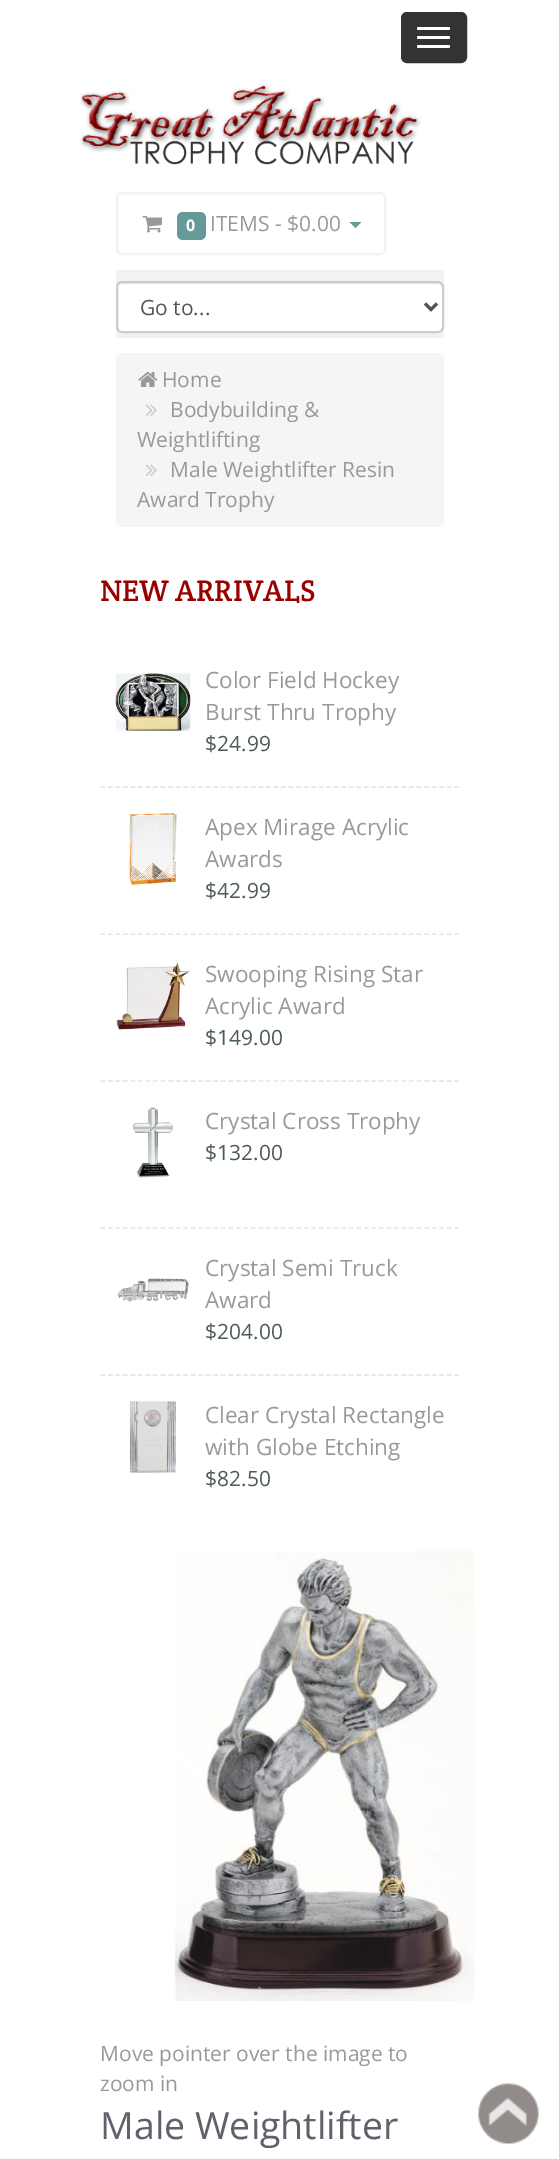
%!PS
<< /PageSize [559 2159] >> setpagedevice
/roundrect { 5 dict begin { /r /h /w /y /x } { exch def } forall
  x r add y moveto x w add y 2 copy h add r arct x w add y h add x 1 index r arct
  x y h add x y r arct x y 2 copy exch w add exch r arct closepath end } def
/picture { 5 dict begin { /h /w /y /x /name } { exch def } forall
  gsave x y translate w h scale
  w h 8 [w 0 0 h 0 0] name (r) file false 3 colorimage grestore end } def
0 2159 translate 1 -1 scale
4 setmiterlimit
1 setgray
0 0 559 2159 rectfill
0.2 setgray
402 13 64 49 5 roundrect gsave fill grestore
2 setlinewidth
stroke
1 setgray
417 27 33 3 1.5 roundrect fill
417 36 33 3 1.5 roundrect fill
417 45 33 3 1.5 roundrect fill
(img1.rgb) 79 84 342 81 picture
0.949 setgray
117 193 268 61 5 roundrect stroke
(img2.rgb) 142 216 20 17 picture
0.4 0.6 0.6 setrgbcolor
177 212 29 28 6 roundrect fill
/OpenSans-Bold [16 0 0 -16 0 0] selectfont
1 setgray
186 231 moveto (0) show
/OpenSans-Regular [21 0 0 -21 0 0] selectfont
0.6 setgray
210 231 moveto (ITEMS - $0.00) show
0.4 0.6 0.6 setrgbcolor
newpath 349.5 222 moveto 361.5 222 lineto 355.5 228 lineto closepath fill
0.949 setgray
116 270 328 68 rectfill
1 setgray
116 281 328 52 6 roundrect fill
0.925 setgray
newpath 122 284 moveto 438 284 lineto 440 284 442 286 442 288 curveto 442 328 lineto 441 331 lineto 442 330 443 328 443 327 curveto 443 287 lineto 443 284 441 282 438 282 curveto 122 282 lineto 119 282 117 284 117 287 curveto 117 288 lineto 117 286 119 284 122 284 curveto closepath fill
0.8 setgray
117 282 326 50 5 roundrect stroke
0.333 setgray
3 setlinewidth
newpath 425 303.5 moveto 431 309.5 lineto 437 303.5 lineto stroke
140 315 moveto (Go to...) show
0.961 setgray
116 353 328 174 6 roundrect fill
(img3.rgb) 138 372 20 15 picture
0.6 setgray
162 387 moveto (Home) show
(img4.rgb) 145 404 12 12 picture
170 417 moveto (Bodybuilding &) show
137 447 moveto (Weightlifting) show
(img4.rgb) 145 464 12 12 picture
170 477 moveto (Male Weightlifter Resin) show
137 507 moveto (Award Trophy) show
/CreteRound-Regular [30 0 0 -30 0 0] selectfont
0.6 0 0 setrgbcolor
100 601 moveto (NEW ARRIVALS) show
0.906 setgray
1.5 setlinewidth
[4.5 3.03] 0 setdash
newpath 100.5 787 moveto 459 787 lineto stroke
(img5.rgb) 115 673 76 59 picture
/OpenSans-Regular [22.5 0 0 -22.5 0 0] selectfont
0.6 setgray
205 688 moveto (Color Field Hockey) show
205 720 moveto (Burst Thru Trophy) show
/OpenSans-Regular [21 0 0 -21 0 0] selectfont
0.294 0.357 0.345 setrgbcolor
205 751 moveto ($24.99) show
0.906 setgray
newpath 100.5 934 moveto 459 934 lineto stroke
(img6.rgb) 129 813 48 72 picture
/OpenSans-Regular [22.5 0 0 -22.5 0 0] selectfont
0.6 setgray
205 835 moveto (Apex Mirage Acrylic) show
205 867 moveto (Awards) show
/OpenSans-Regular [21 0 0 -21 0 0] selectfont
0.294 0.357 0.345 setrgbcolor
205 898 moveto ($42.99) show
0.906 setgray
newpath 100.5 1081 moveto 459 1081 lineto stroke
(img7.rgb) 116 961 74 70 picture
/OpenSans-Regular [22.5 0 0 -22.5 0 0] selectfont
0.6 setgray
205 982 moveto (Swooping Rising Star) show
205 1014 moveto (Acrylic Award) show
/OpenSans-Regular [21 0 0 -21 0 0] selectfont
0.294 0.357 0.345 setrgbcolor
205 1045 moveto ($149.00) show
0.906 setgray
newpath 100.5 1228 moveto 459 1228 lineto stroke
(img8.rgb) 133 1107 40 71 picture
/OpenSans-Regular [22.5 0 0 -22.5 0 0] selectfont
0.6 setgray
205 1129 moveto (Crystal Cross Trophy) show
/OpenSans-Regular [21 0 0 -21 0 0] selectfont
0.294 0.357 0.345 setrgbcolor
205 1160 moveto ($132.00) show
0.906 setgray
newpath 100.5 1375 moveto 459 1375 lineto stroke
(img9.rgb) 117 1278 72 24 picture
/OpenSans-Regular [22.5 0 0 -22.5 0 0] selectfont
0.6 setgray
205 1276 moveto (Crystal Semi Truck) show
205 1308 moveto (Award) show
/OpenSans-Regular [21 0 0 -21 0 0] selectfont
0.294 0.357 0.345 setrgbcolor
205 1339 moveto ($204.00) show
(img10.rgb) 129 1401 48 72 picture
/OpenSans-Regular [22.5 0 0 -22.5 0 0] selectfont
0.6 setgray
205 1423 moveto (Clear Crystal Rectangle) show
205 1455 moveto (with Globe Etching) show
/OpenSans-Regular [21 0 0 -21 0 0] selectfont
0.294 0.357 0.345 setrgbcolor
205 1486 moveto ($82.50) show
(img11.rgb) 173 1551 302 450 picture
0.6 setgray
100 2061 moveto (Move pointer over the image to) show
100 2091 moveto (zoom in) show
/OpenSans-Regular [37.5 0 0 -37.5 0 0] selectfont
0.369 0.384 0.42 setrgbcolor
100 2139 moveto (Male Weightlifter) show
(img12.rgb) 478 2083 61 61 picture
showpage
